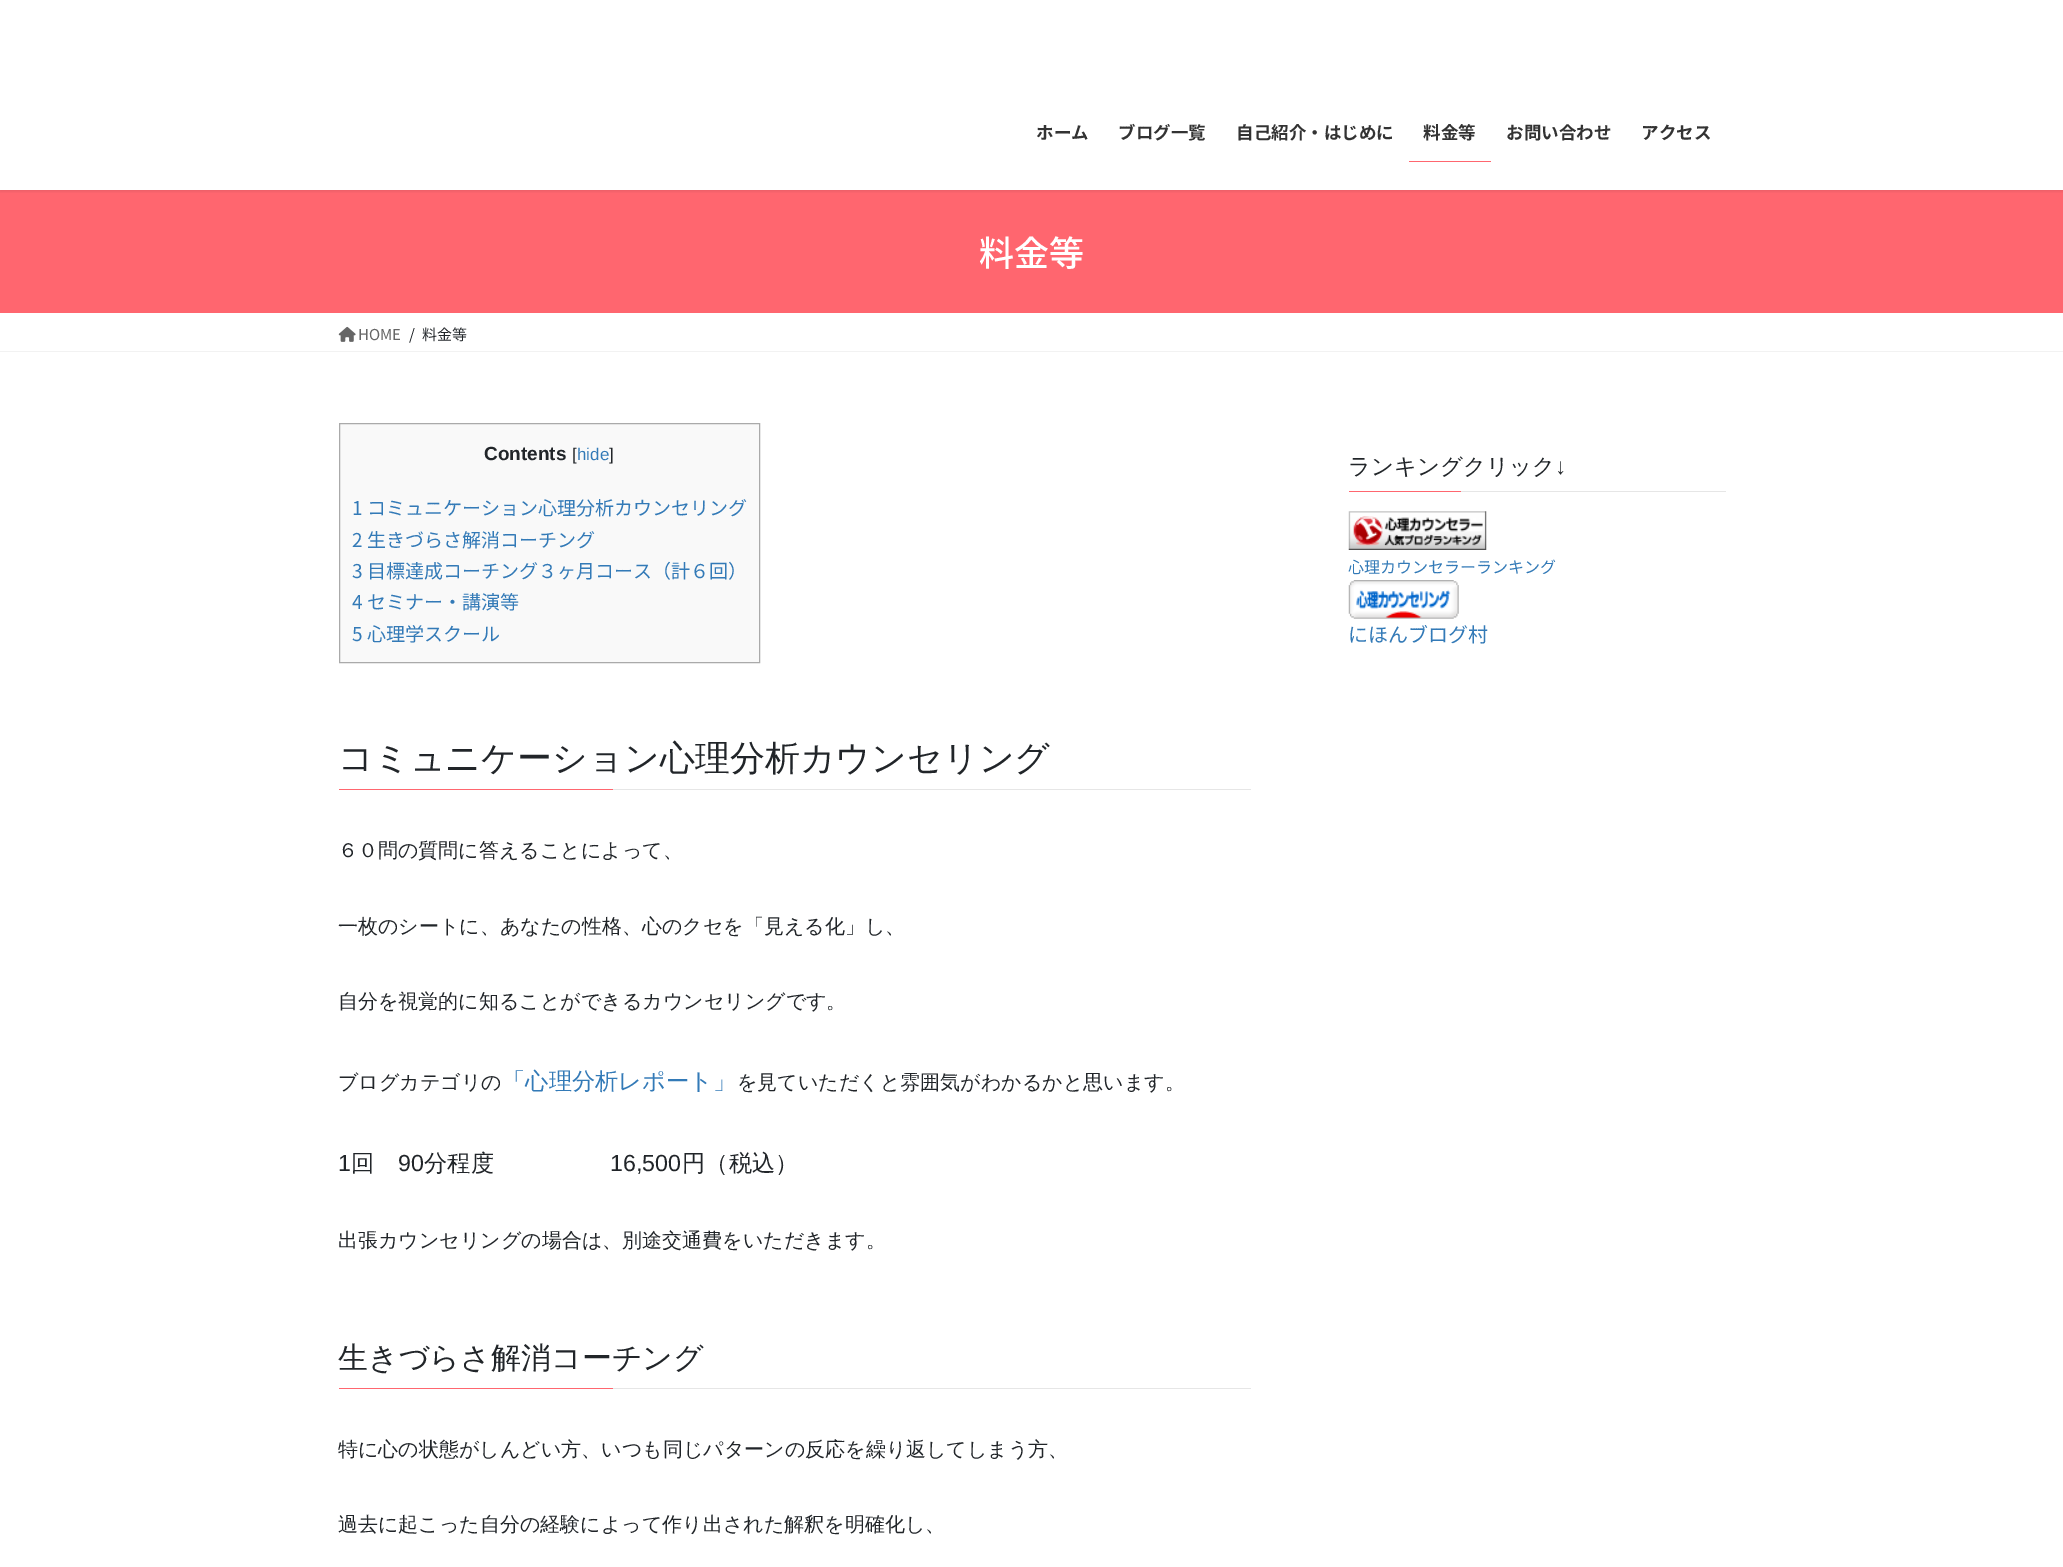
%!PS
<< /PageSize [2063 1567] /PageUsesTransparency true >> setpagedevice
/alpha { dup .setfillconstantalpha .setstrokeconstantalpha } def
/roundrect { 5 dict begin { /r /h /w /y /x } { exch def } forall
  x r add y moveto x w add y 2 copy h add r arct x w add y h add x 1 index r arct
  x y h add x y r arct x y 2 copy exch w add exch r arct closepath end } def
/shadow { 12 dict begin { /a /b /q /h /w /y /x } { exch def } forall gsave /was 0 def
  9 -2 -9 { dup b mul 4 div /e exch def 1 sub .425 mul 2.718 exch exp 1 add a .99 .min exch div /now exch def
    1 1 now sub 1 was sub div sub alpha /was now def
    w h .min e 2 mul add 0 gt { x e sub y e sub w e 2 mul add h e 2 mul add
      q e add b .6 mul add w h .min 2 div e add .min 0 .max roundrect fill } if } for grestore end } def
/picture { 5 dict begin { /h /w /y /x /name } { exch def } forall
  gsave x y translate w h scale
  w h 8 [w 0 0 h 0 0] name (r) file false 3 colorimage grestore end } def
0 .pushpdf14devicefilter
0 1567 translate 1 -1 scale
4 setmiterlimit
1 setgray
0 0 2063 1567 rectfill
1 0.4 0.435 setrgbcolor
0 190 2063 123 rectfill
gsave
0 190 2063 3 rectclip
0 setgray
0 1 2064 190 0 2 0.1 shadow
grestore
/NotoSansJP-Bold [17.5 0 0 -17.5 0 0] selectfont
0.2 setgray
1036 139 moveto (ホーム) show
1118 139 moveto (ブログ一覧) show
1236 139 moveto (自己紹介・はじめに) show
1423 139 moveto (料金等) show
1 0.4 0.435 setrgbcolor
1409 161 82 1 rectfill
0.2 setgray
1506 139 moveto (お問い合わせ) show
1641 139 moveto (アクセス) show
/NotoSansJP-Medium [35 0 0 -35 0 0] selectfont
1 setgray
979 266 moveto (料金等) show
0.949 setgray
0 351 2063 1 rectfill
(img1.rgb) 338 326 18 16 picture
/NotoSansJP-Regular [15 0 0 -15 0 0] selectfont
0.4 setgray
358 340 moveto (HOME) show
0.129 0.145 0.161 setrgbcolor
409 340 moveto (/) show
422 340 moveto (料金等) show
0.976 setgray
newpath 339.5 423.5 moveto 759.5 423.5 lineto 759.5 662.5 lineto 339.5 662.5 lineto closepath gsave fill grestore
0.667 setgray
stroke
/LiberationSans-Bold [19 0 0 -19 0 0] selectfont
0.129 0.145 0.161 setrgbcolor
484 460 moveto (Contents) show
/LiberationSans-Regular [17 0 0 -17 0 0] selectfont
572 460 moveto ([) show
0.2 0.478 0.718 setrgbcolor
577 460 moveto (hide) show
0.129 0.145 0.161 setrgbcolor
609 460 moveto (]) show
/NotoSansJP-Regular [19 0 0 -19 0 0] selectfont
0.2 0.478 0.718 setrgbcolor
352 515 moveto (1 コミュニケーション心理分析カウンセリング) show
352 547 moveto (2 生きづらさ解消コーチング) show
352 578 moveto (3 目標達成コーチング３ヶ月コース（計６回）) show
352 609 moveto (4 セミナー・講演等) show
352 641 moveto (5 心理学スクール) show
0.902 setgray
613 789 638 1 rectfill
/WenQuanYiZenHei-Medium [35 0 0 -35 0 0] selectfont
0.129 0.145 0.161 setrgbcolor
338 770 moveto (コミュニケーション心理分析カウンセリング) show
1 0.4 0.435 setrgbcolor
339 789 274 1 rectfill
/WenQuanYiZenHei-Medium [20 0 0 -20 0 0] selectfont
0.129 0.145 0.161 setrgbcolor
338 857 moveto (６０問の質問に答えることによって、) show
338 933 moveto (一枚のシートに、あなたの性格、心のクセを「見える化」し、) show
338 1008 moveto (自分を視覚的に知ることができるカウンセリングです。) show
338 1089 moveto (ブログカテゴリの) show
/WenQuanYiZenHei-Medium [23.25 0 0 -23.25 0 0] selectfont
0.2 0.478 0.718 setrgbcolor
502 1089 moveto (「心理分析レポート」) show
/WenQuanYiZenHei-Medium [20 0 0 -20 0 0] selectfont
0.129 0.145 0.161 setrgbcolor
737 1089 moveto (を見ていただくと雰囲気がわかるかと思います。) show
/LiberationSans-Regular [23.25 0 0 -23.25 0 0] selectfont
338 1171 moveto (1) show
/WenQuanYiZenHei-Medium [23.25 0 0 -23.25 0 0] selectfont
351 1171 moveto (回) show
/LiberationSans-Regular [23.25 0 0 -23.25 0 0] selectfont
398 1171 moveto (90) show
/WenQuanYiZenHei-Medium [23.25 0 0 -23.25 0 0] selectfont
424 1171 moveto (分程度) show
/LiberationSans-Regular [23.25 0 0 -23.25 0 0] selectfont
610 1171 moveto (16,500) show
/WenQuanYiZenHei-Medium [23.25 0 0 -23.25 0 0] selectfont
682 1171 moveto (円（税込）) show
/WenQuanYiZenHei-Medium [20 0 0 -20 0 0] selectfont
338 1247 moveto (出張カウンセリングの場合は、別途交通費をいただきます。) show
0.902 setgray
613 1388 638 1 rectfill
/WenQuanYiZenHei-Medium [30 0 0 -30 0 0] selectfont
0.129 0.145 0.161 setrgbcolor
338 1368 moveto (生きづらさ解消コーチング) show
1 0.4 0.435 setrgbcolor
339 1388 274 1 rectfill
/WenQuanYiZenHei-Medium [20 0 0 -20 0 0] selectfont
0.129 0.145 0.161 setrgbcolor
338 1456 moveto (特に心の状態がしんどい方、いつも同じパターンの反応を繰り返してしまう方、) show
338 1531 moveto (過去に起こった自分の経験によって作り出された解釈を明確化し、) show
0.902 setgray
1461 491 265 1 rectfill
/WenQuanYiZenHei-Medium [22.5 0 0 -22.5 0 0] selectfont
0.129 0.145 0.161 setrgbcolor
1348 474 moveto (ランキングクリック) show
/LiberationSans-Regular [22.5 0 0 -22.5 0 0] selectfont
1555 474 moveto (↓) show
1 0.4 0.435 setrgbcolor
1349 491 112 1 rectfill
(img2.rgb) 1348 511 139 39 picture
/NotoSansJP-Regular [16 0 0 -16 0 0] selectfont
0.2 0.478 0.718 setrgbcolor
1348 573 moveto (心理カウンセラーランキング) show
(img3.rgb) 1348 580 111 39 picture
/NotoSansJP-Regular [20 0 0 -20 0 0] selectfont
1348 642 moveto (にほんブログ村) show
.poppdf14devicefilter showpage
